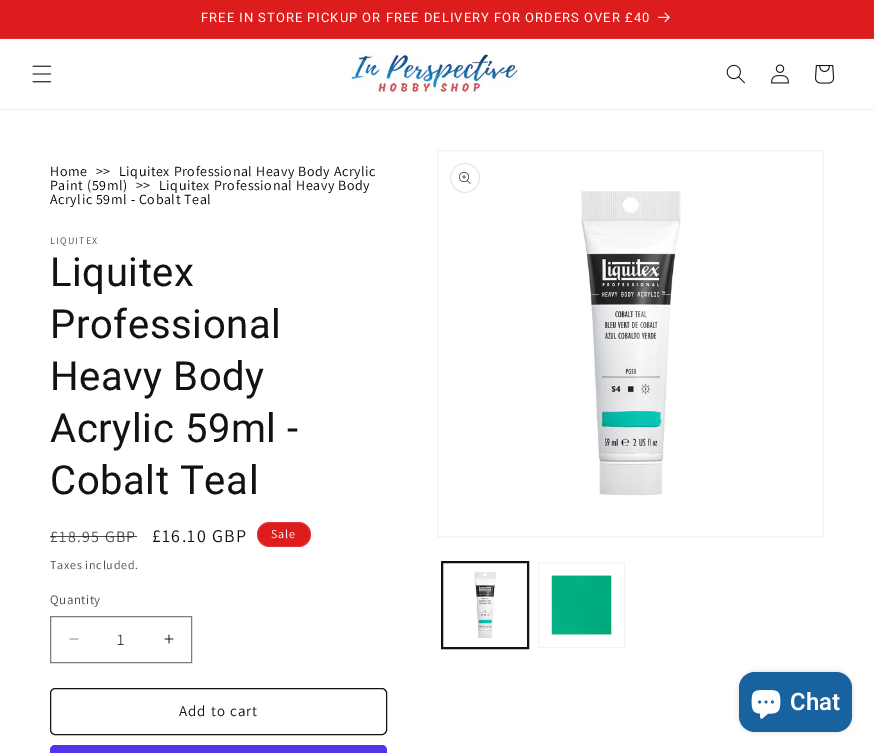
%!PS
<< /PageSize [874 753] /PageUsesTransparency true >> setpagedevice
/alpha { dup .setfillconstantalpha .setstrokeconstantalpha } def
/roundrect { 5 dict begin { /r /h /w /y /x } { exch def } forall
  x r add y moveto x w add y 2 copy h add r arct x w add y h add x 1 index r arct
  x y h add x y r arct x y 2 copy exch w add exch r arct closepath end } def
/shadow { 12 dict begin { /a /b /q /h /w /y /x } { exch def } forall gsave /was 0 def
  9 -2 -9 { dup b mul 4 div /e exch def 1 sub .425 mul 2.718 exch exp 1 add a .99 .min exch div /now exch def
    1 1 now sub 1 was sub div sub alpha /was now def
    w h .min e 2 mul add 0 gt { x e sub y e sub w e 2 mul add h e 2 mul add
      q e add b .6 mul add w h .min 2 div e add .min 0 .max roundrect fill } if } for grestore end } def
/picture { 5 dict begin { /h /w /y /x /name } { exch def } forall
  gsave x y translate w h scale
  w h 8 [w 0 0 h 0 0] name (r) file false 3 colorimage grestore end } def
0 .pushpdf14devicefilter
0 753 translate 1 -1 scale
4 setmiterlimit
1 setgray
0 0 874 753 rectfill
0.867 0.114 0.114 setrgbcolor
0 0 874 38 rectfill
0.878 0.184 0.184 setrgbcolor
0 38 874 1 rectfill
/Roboto-Regular [13 0 0 -13 0 0] selectfont
1 setgray
201 22 moveto 1 0 (FREE IN STORE PICKUP OR FREE DELIVERY FOR ORDERS OVER £40) ashow
(img1.rgb) 658 12 12 11 picture
0.925 setgray
0 109 874 1 rectfill
(img2.rgb) 32 65 20 18 picture
(img3.rgb) 350 53 168 41 picture
(img4.rgb) 726 64 19 20 picture
(img5.rgb) 771 64 18 20 picture
(img6.rgb) 815 65 20 19 picture
/Assistant-Regular [14 0 0 -14 0 0] selectfont
0 setgray
50 176 moveto 0.6 0 (Home) ashow
96 176 moveto 0.6 0 (>>) ashow
119 176 moveto 0.6 0 (Liquitex Professional Heavy Body Acrylic) ashow
50 190 moveto 0.6 0 (Paint \(59ml\)) ashow
136 190 moveto 0.6 0 (>>) ashow
159 190 moveto 0.6 0 (Liquitex Professional Heavy Body) ashow
50 204 moveto 0.6 0 (Acrylic 59ml - Cobalt Teal) ashow
/Assistant-Regular [10 0 0 -10 0 0] selectfont
0.302 setgray
50 244 moveto 1.25 0 (LIQUITEX) ashow
/Roboto-Regular [40 0 0 -40 0 0] selectfont
0.071 setgray
50 286 moveto 0.6 0 (Liquitex) ashow
50 338 moveto 0.6 0 (Professional) ashow
50 390 moveto 0.6 0 (Heavy Body) ashow
50 442 moveto 0.6 0 (Acrylic 59ml -) ashow
50 494 moveto 0.6 0 (Cobalt Teal) ashow
/Assistant-Regular [16 0 0 -16 0 0] selectfont
0.302 setgray
50 542 moveto 1.25 0 (£18.95 GBP) ashow
0.75 alpha
0.071 setgray
50 536 87 1 rectfill
/Assistant-Regular [18 0 0 -18 0 0] selectfont
1 alpha
152 542 moveto 1.25 0 (£16.10 GBP) ashow
0.867 0.114 0.114 setrgbcolor
257 522 54 25 12.5 roundrect fill
0.1 alpha
1 setgray
257.5 522.5 53 24 12 roundrect stroke
/Assistant-Regular [12 0 0 -12 0 0] selectfont
1 alpha
271 538 moveto 1 0 (Sale) ashow
0.302 setgray
50 569 moveto 0.75 0 (Taxes included.) ashow
/Assistant-Regular [13 0 0 -13 0 0] selectfont
50 604 moveto 0.5 0 (Quantity) ashow
(img7.rgb) 69 638 10 2 picture
(img8.rgb) 164 634 10 10 picture
0.49 setgray
50.5 616.5 141 46 rectstroke
/Assistant-Regular [16 0 0 -16 0 0] selectfont
0.212 setgray
117 645 moveto (1) show
0.071 setgray
50.5 688.5 336 46 4.5 roundrect stroke
/Assistant-Regular [15 0 0 -15 0 0] selectfont
179 716 moveto 1 0 (Add to cart) ashow
0.329 0.2 0.922 setrgbcolor
50 745 337 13 5 roundrect fill
0.953 setgray
437.5 150.5 386 386 rectstroke
0.906 setgray
newpath 465 178 14.5 0 360 arc closepath stroke
(img9.rgb) 459 172 12 12 picture
(img10.rgb) 581 191 100 305 picture
0.071 setgray
441.5 561.5 87 87 rectstroke
442.5 562.5 85 85 rectstroke
(img11.rgb) 474 571 22 67 picture
0.953 setgray
538.5 562.5 86 85 rectstroke
(img12.rgb) 551 575 61 61 picture
0 setgray
739 672 113 60 16 2.5 0.15 shadow
0.09 0.384 0.624 setrgbcolor
739 672 113 60 16 roundrect fill
(img13.rgb) 751 690 30 29 picture
/Roboto-SemiBold [24 0 0 -24 0 0] selectfont
1 setgray
790 710 moveto (Chat) show
.poppdf14devicefilter showpage
